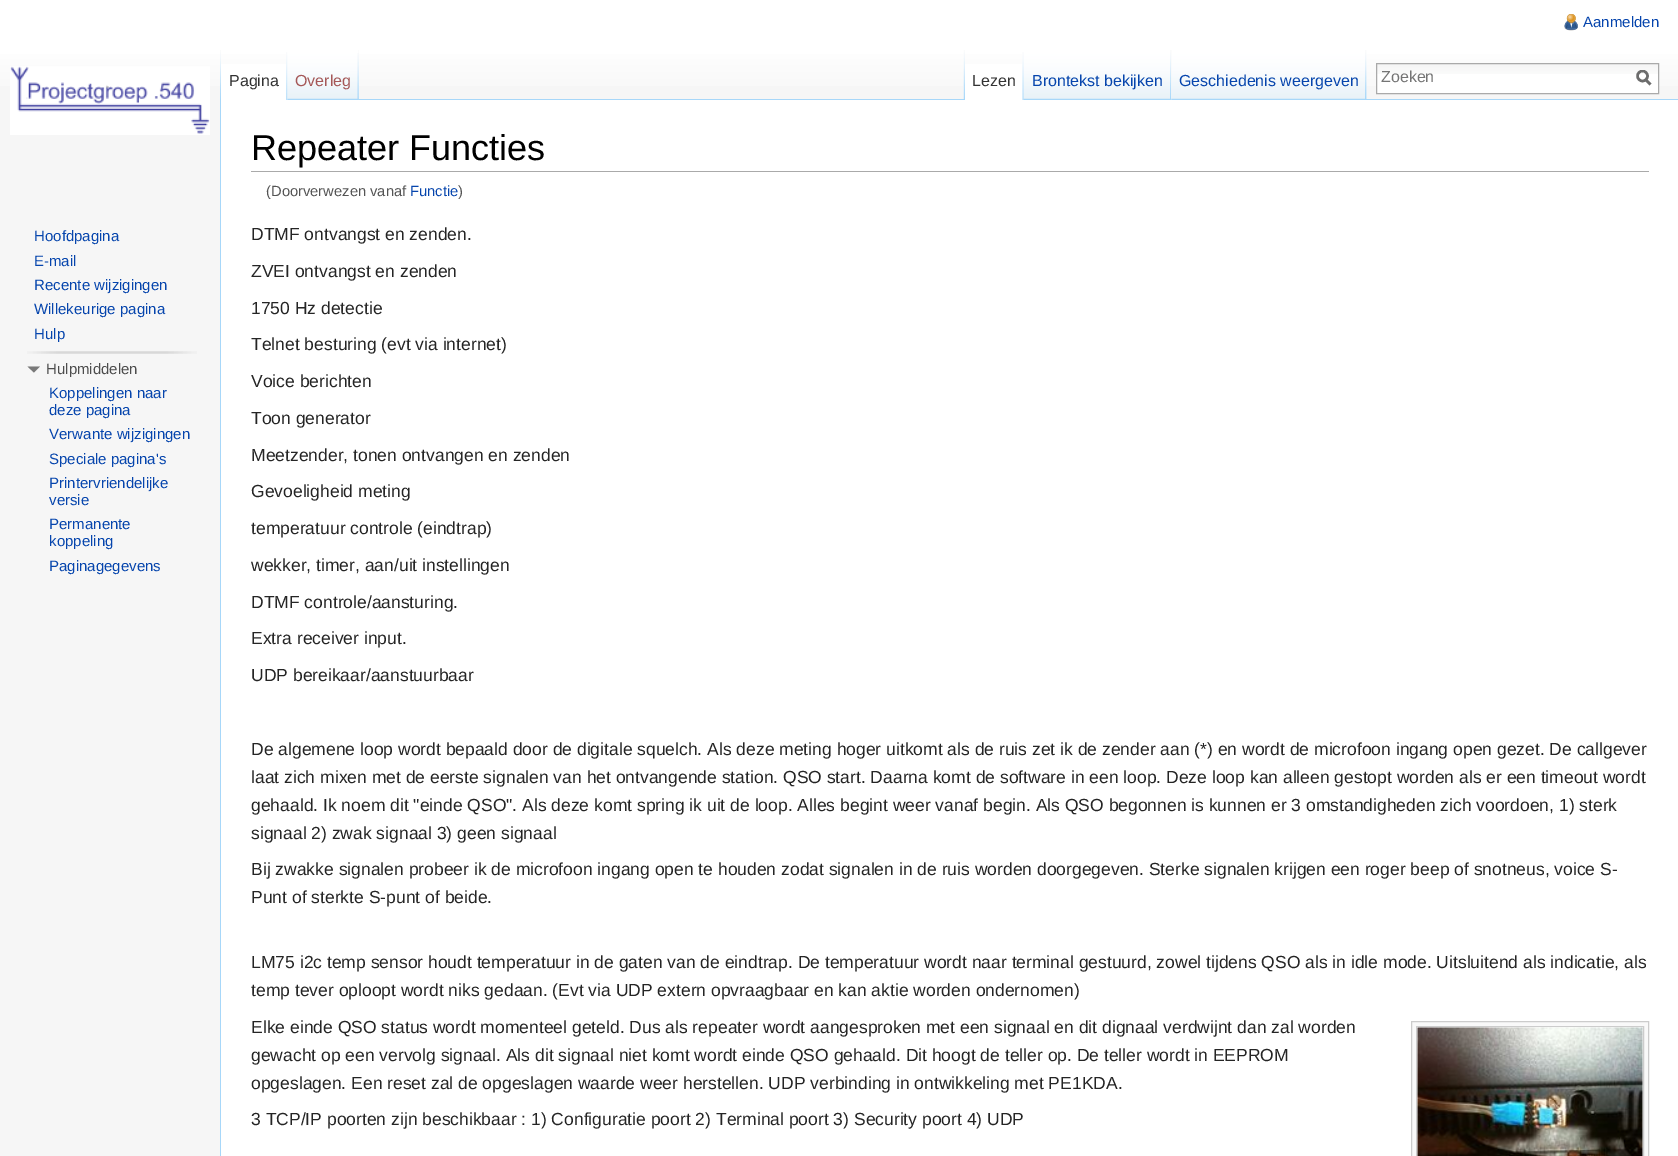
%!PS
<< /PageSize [1678 1156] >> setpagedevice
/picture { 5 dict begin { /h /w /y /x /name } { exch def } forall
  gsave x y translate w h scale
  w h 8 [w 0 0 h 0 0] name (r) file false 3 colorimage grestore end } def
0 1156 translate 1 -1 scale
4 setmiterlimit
0.965 setgray
0 0 1678 1156 rectfill
gsave newpath 0 0 moveto 1678 0 lineto 1678 86 lineto 0 86 lineto closepath clip newpath
<< /ShadingType 2 /ColorSpace /DeviceRGB /Coords [839 0 839 100] /Extend [true true] /Function << /FunctionType 3 /Domain [0 1] /Functions [<< /FunctionType 2 /Domain [0 1] /C0 [1 1 1] /C1 [1 1 1] /N 1 >> << /FunctionType 2 /Domain [0 1] /C0 [1 1 1] /C1 [0.965 0.965 0.965] /N 1 >>] /Bounds [0.5] /Encode [0 1 0 1] >> >> shfill grestore
(img1.rgb) 1564 14 14 17 picture
/LiberationSans-Regular [15 0 0 -15 0 0] selectfont
0.024 0.271 0.678 setrgbcolor
1583 27 moveto (Aanmelden) show
(img2.rgb) 220 50 1 49 picture
(img3.rgb) 358 52 1 47 picture
1 setgray
221 64 67 36 rectfill
(img4.rgb) 286 52 2 48 picture
/LiberationSans-Regular [16 0 0 -16 0 0] selectfont
0.2 setgray
229 86 moveto (Pagina) show
0.655 0.843 0.976 setrgbcolor
358 99 1320 1 rectfill
(img5.rgb) 287 50 72 50 picture
(img6.rgb) 357 53 2 47 picture
0.647 0.345 0.345 setrgbcolor
295 86 moveto (Overleg) show
(img7.rgb) 963 50 2 49 picture
(img8.rgb) 1366 50 1 49 picture
1 setgray
965 64 59 36 rectfill
(img9.rgb) 1022 52 2 48 picture
0.2 setgray
972 86 moveto (Lezen) show
(img10.rgb) 1023 50 149 50 picture
(img11.rgb) 1170 50 2 49 picture
0.024 0.271 0.678 setrgbcolor
1032 86 moveto (Brontekst bekijken) show
(img12.rgb) 1171 50 195 50 picture
(img13.rgb) 1365 50 2 49 picture
1179 86 moveto (Geschiedenis weergeven) show
1 setgray
1377 74 281 19 rectfill
(img14.rgb) 1377 64 281 10 picture
0.667 setgray
1376.5 63.5 282 30 rectstroke
0.459 setgray
1381 82 moveto (Zoeken) show
0.424 setgray
2.5 setlinewidth
newpath 1650.5 84.5 moveto 1645.5 79.5 lineto stroke
gsave
1636 70 15 16 rectclip
newpath 1642.5 76 5 0 360 arc closepath stroke
grestore
(img15.rgb) 10 66 200 69 picture
/LiberationSans-Regular [15 0 0 -15 0 0] selectfont
0.024 0.271 0.678 setrgbcolor
34 241 moveto (Hoofdpagina) show
34 266 moveto (E-mail) show
34 290 moveto (Recente wijzigingen) show
34 314 moveto (Willekeurige pagina) show
34 339 moveto (Hulp) show
(img16.rgb) 27 351 170 3 picture
0.475 setgray
newpath 40 366.5 moveto 34 372.5 lineto 27.5 366.5 lineto closepath fill
0.302 setgray
46 374 moveto (Hulpmiddelen) show
0.024 0.271 0.678 setrgbcolor
49 398 moveto (Koppelingen naar) show
49 415 moveto (deze pagina) show
49 439 moveto (Verwante wijzigingen) show
49 464 moveto (Speciale pagina's) show
49 488 moveto (Printervriendelijke) show
49 505 moveto (versie) show
49 529 moveto (Permanente) show
49 546 moveto (koppeling) show
49 571 moveto (Paginagegevens) show
1 setgray
221 100 1457 1056 rectfill
0.655 0.843 0.976 setrgbcolor
220 99 1 1057 rectfill
0.667 setgray
251 171 1398 1 rectfill
/LiberationSans-Regular [36 0 0 -36 0 0] selectfont
0 setgray
251 160 moveto (Repeater Functies) show
/LiberationSans-Regular [14.75 0 0 -14.75 0 0] selectfont
0.329 setgray
266 196 moveto (\(Doorverwezen vanaf) show
0.024 0.271 0.678 setrgbcolor
410 196 moveto (Functie) show
0.329 setgray
458 196 moveto (\)) show
/LiberationSans-Regular [17.5 0 0 -17.5 0 0] selectfont
0.145 setgray
251 240 moveto (DTMF ontvangst en zenden.) show
251 277 moveto (ZVEI ontvangst en zenden) show
251 314 moveto (1750 Hz detectie) show
251 350 moveto (Telnet besturing \(evt via internet\)) show
251 387 moveto (Voice berichten) show
251 424 moveto (Toon generator) show
251 461 moveto (Meetzender, tonen ontvangen en zenden) show
251 497 moveto (Gevoeligheid meting) show
251 534 moveto (temperatuur controle \(eindtrap\)) show
251 571 moveto (wekker, timer, aan/uit instellingen) show
251 608 moveto (DTMF controle/aansturing.) show
251 644 moveto (Extra receiver input.) show
251 681 moveto (UDP bereikaar/aanstuurbaar) show
251 755 moveto (De algemene loop wordt bepaald door de digitale squelch. Als deze meting hoger uitkomt als de ruis zet ik de zender aan \(*\) en wordt de microfoon ingang open gezet. De callgever) show
251 783 moveto (laat zich mixen met de eerste signalen van het ontvangende station. QSO start. Daarna komt de software in een loop. Deze loop kan alleen gestopt worden als er een timeout wordt) show
251 811 moveto (gehaald. Ik noem dit "einde QSO". Als deze komt spring ik uit de loop. Alles begint weer vanaf begin. Als QSO begonnen is kunnen er 3 omstandigheden zich voordoen, 1\) sterk) show
251 839 moveto (signaal 2\) zwak signaal 3\) geen signaal) show
251 875 moveto (Bij zwakke signalen probeer ik de microfoon ingang open te houden zodat signalen in de ruis worden doorgegeven. Sterke signalen krijgen een roger beep of snotneus, voice S-) show
251 903 moveto (Punt of sterkte S-punt of beide.) show
251 968 moveto (LM75 i2c temp sensor houdt temperatuur in de gaten van de eindtrap. De temperatuur wordt naar terminal gestuurd, zowel tijdens QSO als in idle mode. Uitsluitend als indicatie, als) show
251 996 moveto (temp tever oploopt wordt niks gedaan. \(Evt via UDP extern opvraagbaar en kan aktie worden ondernomen\)) show
251 1033 moveto (Elke einde QSO status wordt momenteel geteld. Dus als repeater wordt aangesproken met een signaal en dit dignaal verdwijnt dan zal worden) show
251 1061 moveto (gewacht op een vervolg signaal. Als dit signaal niet komt wordt einde QSO gehaald. Dit hoogt de teller op. De teller wordt in EEPROM) show
251 1089 moveto (opgeslagen. Een reset zal de opgeslagen waarde weer herstellen. UDP verbinding in ontwikkeling met PE1KDA.) show
0.976 setgray
newpath 1411.5 1021.5 moveto 1648.5 1021.5 lineto 1648.5 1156.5 lineto 1411.5 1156.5 lineto closepath gsave fill grestore
0.8 setgray
1 setlinewidth
stroke
1416.5 1026.5 227 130 rectstroke
(img17.rgb) 1417 1027 226 129 picture
0.145 setgray
251 1125 moveto (3 TCP/IP poorten zijn beschikbaar : 1\) Configuratie poort 2\) Terminal poort 3\) Security poort 4\) UDP) show
showpage
